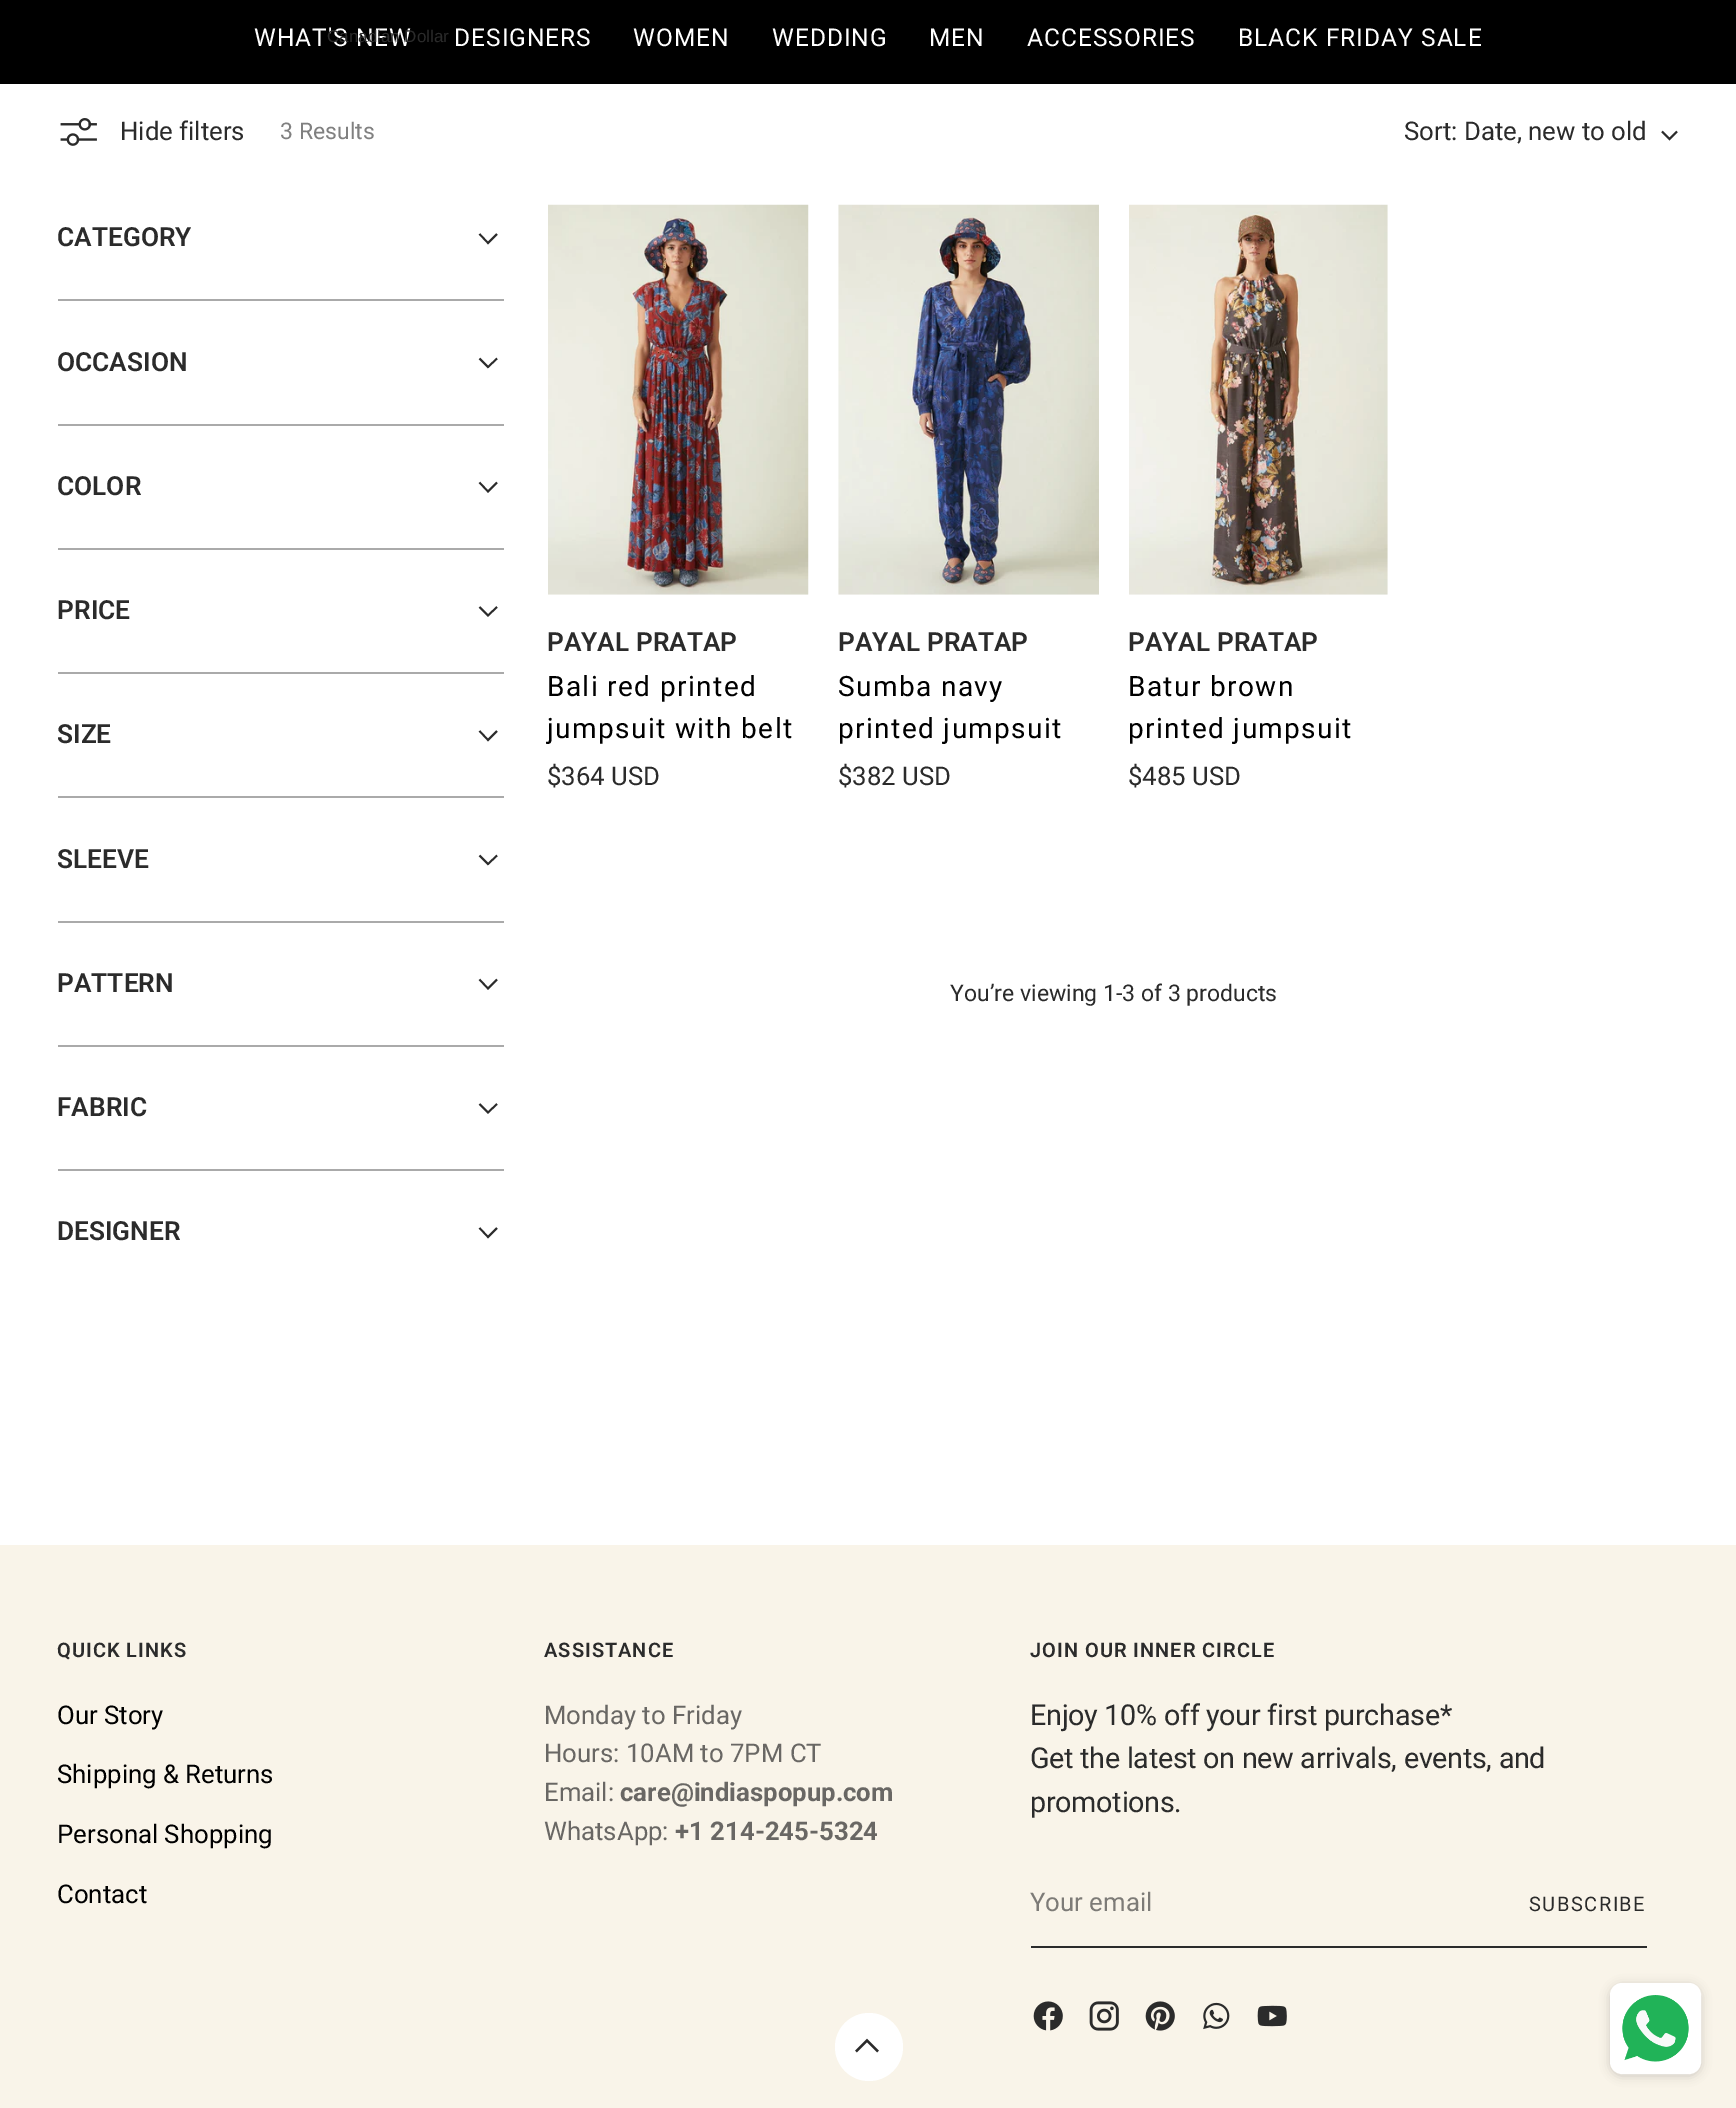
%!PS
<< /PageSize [1736 2108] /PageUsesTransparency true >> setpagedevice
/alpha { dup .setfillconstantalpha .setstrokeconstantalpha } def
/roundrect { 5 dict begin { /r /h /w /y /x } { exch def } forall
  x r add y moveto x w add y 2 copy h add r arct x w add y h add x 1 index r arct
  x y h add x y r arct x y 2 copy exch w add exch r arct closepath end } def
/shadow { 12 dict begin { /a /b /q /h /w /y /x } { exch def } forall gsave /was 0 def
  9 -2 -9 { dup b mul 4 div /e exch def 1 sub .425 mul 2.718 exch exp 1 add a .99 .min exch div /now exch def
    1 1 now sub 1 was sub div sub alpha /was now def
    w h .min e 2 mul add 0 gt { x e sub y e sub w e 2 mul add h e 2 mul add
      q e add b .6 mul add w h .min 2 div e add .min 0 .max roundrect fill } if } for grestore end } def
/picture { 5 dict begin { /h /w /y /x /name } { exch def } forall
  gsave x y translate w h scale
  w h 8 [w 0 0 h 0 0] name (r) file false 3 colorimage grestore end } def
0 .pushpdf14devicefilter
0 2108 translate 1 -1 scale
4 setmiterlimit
1 setgray
0 0 1736 2108 rectfill
0 setgray
0 0 1736 84 rectfill
/Roboto-Regular [24.5 0 0 -24.5 0 0] selectfont
1 setgray
254 46 moveto 1 0 (WHAT'S NEW) ashow
454 46 moveto 1 0 (DESIGNERS) ashow
633 46 moveto 1 0 (WOMEN) ashow
772 46 moveto 1 0 (WEDDING) ashow
929 46 moveto 1 0 (MEN) ashow
1027 46 moveto 1 0 (ACCESSORIES) ashow
1238 46 moveto 1 0 (BLACK FRIDAY SALE) ashow
/LiberationSans-Regular [17 0 0 -17 0 0] selectfont
0.169 setgray
327 42 moveto (Canadian Dollar) show
(img1.rgb) 60 118 37 28 picture
/Roboto-Regular [25.75 0 0 -25.75 0 0] selectfont
120 140 moveto (Hide filters) show
/Roboto-Regular [23 0 0 -23 0 0] selectfont
0.502 setgray
280 139 moveto (3 Results) show
/Roboto-Regular [25.75 0 0 -25.75 0 0] selectfont
0.169 setgray
1404 140 moveto (Sort: Date, new to old) show
2 setlinewidth
newpath 1662 131.5 moveto 1669.5 139 lineto 1677 131.5 lineto stroke
/Roboto-SemiBold [26.25 0 0 -26.25 0 0] selectfont
57 246 moveto (CATEGORY) show
1.8 setlinewidth
newpath 479.5 234 moveto 488 243 lineto 497 234 lineto stroke
0.667 setgray
58 299 446 2 rectfill
0.169 setgray
57 371 moveto (OCCASION) show
newpath 479.5 358.5 moveto 488 367 lineto 497 358.5 lineto stroke
0.667 setgray
58 424 446 2 rectfill
0.169 setgray
57 495 moveto (COLOR) show
newpath 479.5 482.5 moveto 488 491.5 lineto 497 482.5 lineto stroke
0.667 setgray
58 548 446 2 rectfill
0.169 setgray
57 619 moveto (PRICE) show
newpath 479.5 607 moveto 488 615.5 lineto 497 607 lineto stroke
0.667 setgray
58 672 446 2 rectfill
0.169 setgray
57 743 moveto (SIZE) show
newpath 479.5 731 moveto 488 740 lineto 497 731 lineto stroke
0.667 setgray
58 796 446 2 rectfill
0.169 setgray
57 868 moveto (SLEEVE) show
newpath 479.5 855.5 moveto 488 864 lineto 497 855.5 lineto stroke
0.667 setgray
58 921 446 2 rectfill
0.169 setgray
57 992 moveto (PATTERN) show
newpath 479.5 979.5 moveto 488 988.5 lineto 497 979.5 lineto stroke
0.667 setgray
58 1045 446 2 rectfill
0.169 setgray
57 1116 moveto (FABRIC) show
newpath 479.5 1104 moveto 488 1112.5 lineto 497 1104 lineto stroke
0.667 setgray
58 1169 446 2 rectfill
0.169 setgray
57 1240 moveto (DESIGNER) show
newpath 479.5 1228 moveto 488 1237 lineto 497 1228 lineto stroke
(img2.rgb) 548 204 261 391 picture
547 651 moveto (PAYAL PRATAP) show
/Roboto-Regular [28 0 0 -28 0 0] selectfont
0 setgray
547 696 moveto 1.4 0 (Bali red printed) ashow
547 738 moveto 1.4 0 (jumpsuit with belt) ashow
/Roboto-Regular [25.75 0 0 -25.75 0 0] selectfont
0.169 setgray
547 785 moveto ($364 USD) show
(img3.rgb) 838 204 261 391 picture
/Roboto-SemiBold [26.25 0 0 -26.25 0 0] selectfont
838 651 moveto (PAYAL PRATAP) show
/Roboto-Regular [28 0 0 -28 0 0] selectfont
0 setgray
838 696 moveto 1.4 0 (Sumba navy) ashow
838 738 moveto 1.4 0 (printed jumpsuit) ashow
/Roboto-Regular [25.75 0 0 -25.75 0 0] selectfont
0.169 setgray
838 785 moveto ($382 USD) show
(img4.rgb) 1129 204 259 391 picture
/Roboto-SemiBold [26.25 0 0 -26.25 0 0] selectfont
1128 651 moveto (PAYAL PRATAP) show
/Roboto-Regular [28 0 0 -28 0 0] selectfont
0 setgray
1128 696 moveto 1.4 0 (Batur brown) ashow
1128 738 moveto 1.4 0 (printed jumpsuit) ashow
/Roboto-Regular [25.75 0 0 -25.75 0 0] selectfont
0.169 setgray
1128 785 moveto ($485 USD) show
/Roboto-Regular [23 0 0 -23 0 0] selectfont
950 1001 moveto (You’re viewing 1-3 of 3 products) show
0.976 0.957 0.914 setrgbcolor
0 1545 1736 563 rectfill
/Roboto-SemiBold [20 0 0 -20 0 0] selectfont
0.169 setgray
57 1657 moveto 1 0 (QUICK LINKS) ashow
/Roboto-Regular [25.75 0 0 -25.75 0 0] selectfont
0 setgray
57 1724 moveto (Our Story) show
57 1783 moveto (Shipping & Returns) show
57 1843 moveto (Personal Shopping) show
57 1903 moveto (Contact) show
/Roboto-SemiBold [20 0 0 -20 0 0] selectfont
0.169 setgray
544 1657 moveto 1 0 (ASSISTANCE) ashow
/Roboto-Regular [25.75 0 0 -25.75 0 0] selectfont
0.412 0.404 0.392 setrgbcolor
544 1724 moveto (Monday to Friday) show
544 1762 moveto (Hours: 10AM to 7PM CT) show
544 1801 moveto (Email:) show
/Roboto-Bold [25.75 0 0 -25.75 0 0] selectfont
620 1801 moveto (care@indiaspopup.com) show
/Roboto-Regular [25.75 0 0 -25.75 0 0] selectfont
544 1840 moveto (WhatsApp:) show
/Roboto-Bold [25.75 0 0 -25.75 0 0] selectfont
675 1840 moveto (+1 214-245-5324) show
/Roboto-SemiBold [20 0 0 -20 0 0] selectfont
0.169 setgray
1030 1657 moveto 1 0 (JOIN OUR INNER CIRCLE) ashow
/Roboto-Regular [28.75 0 0 -28.75 0 0] selectfont
1030 1725 moveto -0.3 0 (Enjoy 10% off your first purchase*) ashow
1030 1768 moveto -0.3 0 (Get the latest on new arrivals, events, and) ashow
1030 1812 moveto -0.3 0 (promotions.) ashow
1031 1946 616 2 rectfill
/Roboto-Regular [25.75 0 0 -25.75 0 0] selectfont
0.49 0.482 0.467 setrgbcolor
1030 1911 moveto (Your email) show
/Roboto-Regular [20 0 0 -20 0 0] selectfont
0.169 setgray
1529 1911 moveto 1.5 0 (SUBSCRIBE) ashow
(img5.rgb) 1033 2001 30 30 picture
(img6.rgb) 1089 2001 30 30 picture
(img7.rgb) 1145 2001 30 30 picture
(img8.rgb) 1203 2002 27 28 picture
(img9.rgb) 1257 2005 30 22 picture
1 setgray
newpath 869 2047 34 0 360 arc closepath fill
0.169 setgray
2.2 setlinewidth
newpath 878 2051.5 moveto 867 2040.5 lineto 856 2051.5 lineto stroke
0.106 setgray
1610 1985 91 91 12 5 0.2 shadow
1 setgray
1611 1984 89 89 11 roundrect gsave fill grestore
2 setlinewidth
stroke
(img10.rgb) 1622 1995 67 67 picture
.poppdf14devicefilter showpage
